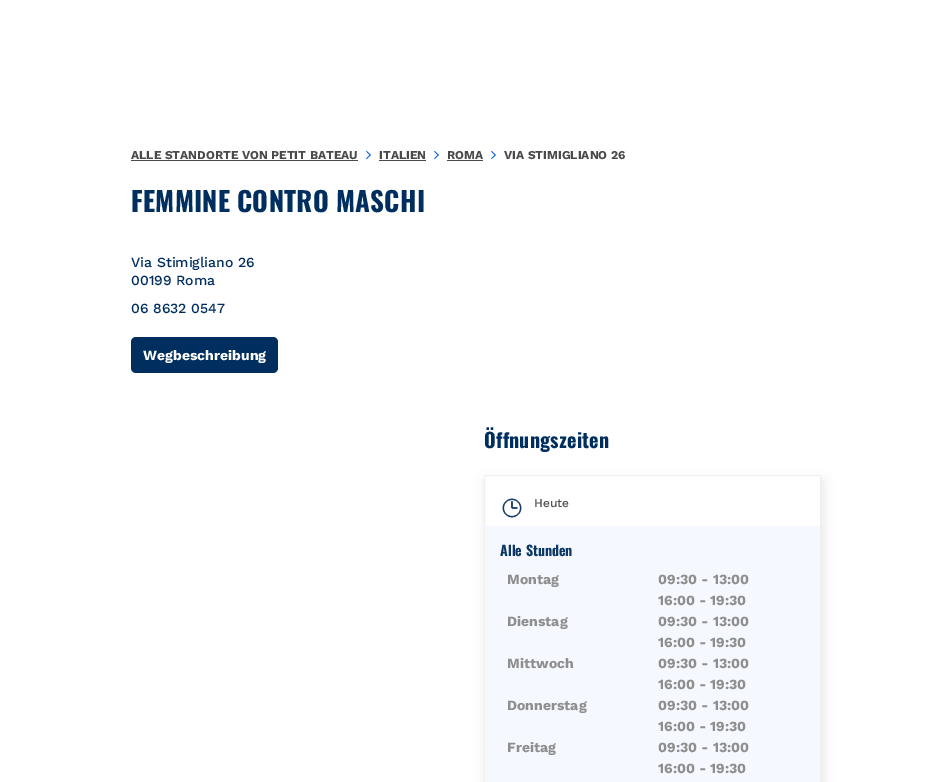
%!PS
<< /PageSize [952 782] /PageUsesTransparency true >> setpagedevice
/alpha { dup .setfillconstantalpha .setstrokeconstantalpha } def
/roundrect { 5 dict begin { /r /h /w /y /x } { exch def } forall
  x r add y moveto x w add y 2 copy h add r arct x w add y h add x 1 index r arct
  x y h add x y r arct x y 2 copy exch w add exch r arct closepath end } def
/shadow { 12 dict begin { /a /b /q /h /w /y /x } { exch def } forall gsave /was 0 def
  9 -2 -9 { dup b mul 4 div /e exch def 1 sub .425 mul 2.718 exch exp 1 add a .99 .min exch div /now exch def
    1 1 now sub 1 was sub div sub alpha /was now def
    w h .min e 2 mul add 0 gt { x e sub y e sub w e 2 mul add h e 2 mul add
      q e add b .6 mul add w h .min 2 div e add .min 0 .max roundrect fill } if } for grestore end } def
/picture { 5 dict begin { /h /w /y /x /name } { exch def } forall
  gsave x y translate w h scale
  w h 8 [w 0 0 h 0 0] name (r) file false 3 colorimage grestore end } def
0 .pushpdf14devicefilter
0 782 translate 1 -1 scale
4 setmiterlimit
1 setgray
0 0 952 782 rectfill
/WorkSans-Bold [12 0 0 -12 0 0] selectfont
0.29 setgray
131 159 moveto (ALLE STANDORTE VON PETIT BATEAU) show
131 160 227 1 rectfill
(img1.rgb) 366 151 5 8 picture
379 159 moveto (ITALIEN) show
379 160 47 1 rectfill
(img1.rgb) 434 151 5 8 picture
447 159 moveto (ROMA) show
447 160 36 1 rectfill
(img1.rgb) 491 151 5 8 picture
504 159 moveto (VIA STIMIGLIANO 26) show
/Oswald-Bold [27 0 0 -27 0 0] selectfont
0 0.18 0.369 setrgbcolor
131 212 moveto 0.25 0 (FEMMINE CONTRO MASCHI) ashow
/WorkSans-Medium [14 0 0 -14 0 0] selectfont
131 267 moveto (Via Stimigliano 26) show
131 285 moveto (00199 Roma) show
131 313 moveto (06 8632 0547) show
131 337 147 36 5 roundrect fill
/WorkSans-Bold [14 0 0 -14 0 0] selectfont
1 setgray
143 360 moveto (Wegbeschreibung) show
/Oswald-Bold [20 0 0 -20 0 0] selectfont
0 0.18 0.369 setrgbcolor
484 448 moveto 0.2 0 (Öffnungszeiten) ashow
gsave
newpath 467 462 moveto 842 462 lineto 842 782 lineto 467 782 lineto closepath 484 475 moveto 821 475 lineto 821 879 lineto 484 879 lineto closepath eoclip newpath
0.051 setgray
486 481 337 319 0 6 0.1 shadow
grestore
0.941 setgray
484.5 475.5 336 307 rectstroke
(img2.rgb) 502 498 20 20 picture
/WorkSans-Medium [12 0 0 -12 0 0] selectfont
0.325 setgray
534 507 moveto (Heute) show
0.961 0.976 1 setrgbcolor
485 526 335 256 rectfill
/Oswald-Bold [14 0 0 -14 0 0] selectfont
0.051 0.22 0.4 setrgbcolor
500 556 moveto (Alle Stunden) show
/WorkSans-Bold [14 0 0 -14 0 0] selectfont
0.557 setgray
507 584 moveto (Montag) show
658 584 moveto (09:30 - 13:00) show
658 605 moveto (16:00 - 19:30) show
507 626 moveto (Dienstag) show
658 626 moveto (09:30 - 13:00) show
658 647 moveto (16:00 - 19:30) show
507 668 moveto (Mittwoch) show
658 668 moveto (09:30 - 13:00) show
658 689 moveto (16:00 - 19:30) show
507 710 moveto (Donnerstag) show
658 710 moveto (09:30 - 13:00) show
658 731 moveto (16:00 - 19:30) show
507 752 moveto (Freitag) show
658 752 moveto (09:30 - 13:00) show
658 773 moveto (16:00 - 19:30) show
.poppdf14devicefilter showpage
